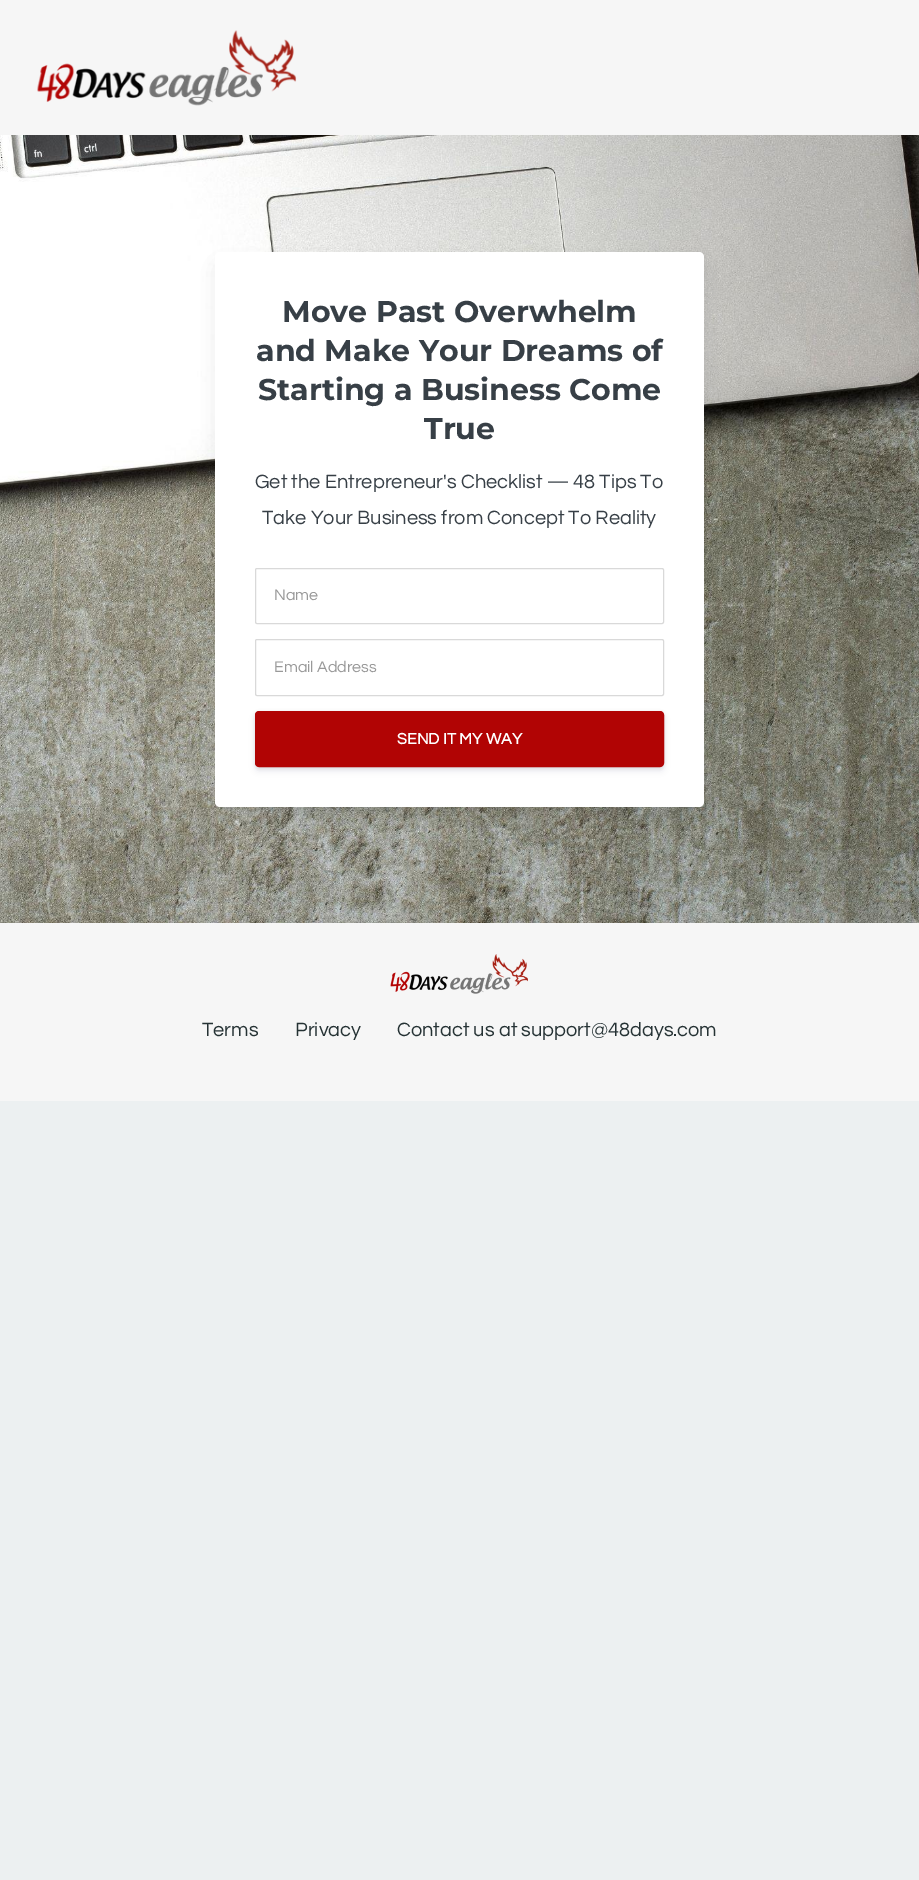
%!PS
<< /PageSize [919 1880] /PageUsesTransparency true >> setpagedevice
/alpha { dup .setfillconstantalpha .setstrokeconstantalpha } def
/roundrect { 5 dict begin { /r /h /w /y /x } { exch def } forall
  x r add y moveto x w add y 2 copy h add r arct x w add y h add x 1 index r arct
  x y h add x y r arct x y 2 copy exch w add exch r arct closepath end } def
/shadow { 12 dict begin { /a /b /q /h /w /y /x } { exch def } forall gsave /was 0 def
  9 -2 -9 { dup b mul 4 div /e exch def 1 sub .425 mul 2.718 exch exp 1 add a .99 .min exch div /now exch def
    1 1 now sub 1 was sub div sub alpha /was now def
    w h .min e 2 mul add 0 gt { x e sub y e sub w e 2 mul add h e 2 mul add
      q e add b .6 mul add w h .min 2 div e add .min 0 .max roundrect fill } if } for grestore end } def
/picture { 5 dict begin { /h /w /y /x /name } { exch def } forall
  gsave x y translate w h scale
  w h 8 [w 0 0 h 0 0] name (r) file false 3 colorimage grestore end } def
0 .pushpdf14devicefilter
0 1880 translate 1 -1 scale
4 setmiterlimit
0.925 0.941 0.945 setrgbcolor
0 0 919 1880 rectfill
0.965 setgray
0 0 919 135 rectfill
(img1.rgb) 37 30 260 76 picture
(img2.rgb) 0 135 919 788 picture
0 setgray
223 270 473 539 0 10 0.2 shadow
1 setgray
215 252 489 555 5 roundrect fill
/Montserrat-Bold [30 0 0 -30 0 0] selectfont
0.216 0.247 0.275 setrgbcolor
282 322 moveto (Move Past Overwhelm) show
256 361 moveto (and Make Your Dreams of) show
258 400 moveto (Starting a Business Come) show
424 439 moveto (True) show
/Questrial-Regular [20 0 0 -20 0 0] selectfont
255 488 moveto (Get the Entrepreneur's Checklist — 48 Tips To) show
262 524 moveto (Take Your Business from Concept To Reality) show
0.851 setgray
255.5 568.5 408 55 1.5 roundrect stroke
/Questrial-Regular [16 0 0 -16 0 0] selectfont
0.6 setgray
274 600 moveto (Name) show
0.851 setgray
255.5 639.5 408 56 1.5 roundrect stroke
0.6 setgray
274 672 moveto (Email Address) show
0 setgray
255 712 409 56 4 1.5 0.08 shadow
0.196 0.196 0.365 setrgbcolor
255 715 409 56 4 3 0.11 shadow
0.694 0.016 0.016 setrgbcolor
256 712 407 54 3 roundrect gsave fill grestore
2 setlinewidth
stroke
/Questrial-Bold [16 0 0 -16 0 0] selectfont
1 setgray
397 744 moveto (SEND IT MY WAY) show
0.965 setgray
0 923 919 178 rectfill
(img3.rgb) 390 954 138 40 picture
/Questrial-Regular [20 0 0 -20 0 0] selectfont
0.145 0.196 0.204 setrgbcolor
202 1036 moveto (Terms) show
295 1036 moveto (Privacy) show
397 1036 moveto (Contact us at support@48days.com) show
.poppdf14devicefilter showpage
